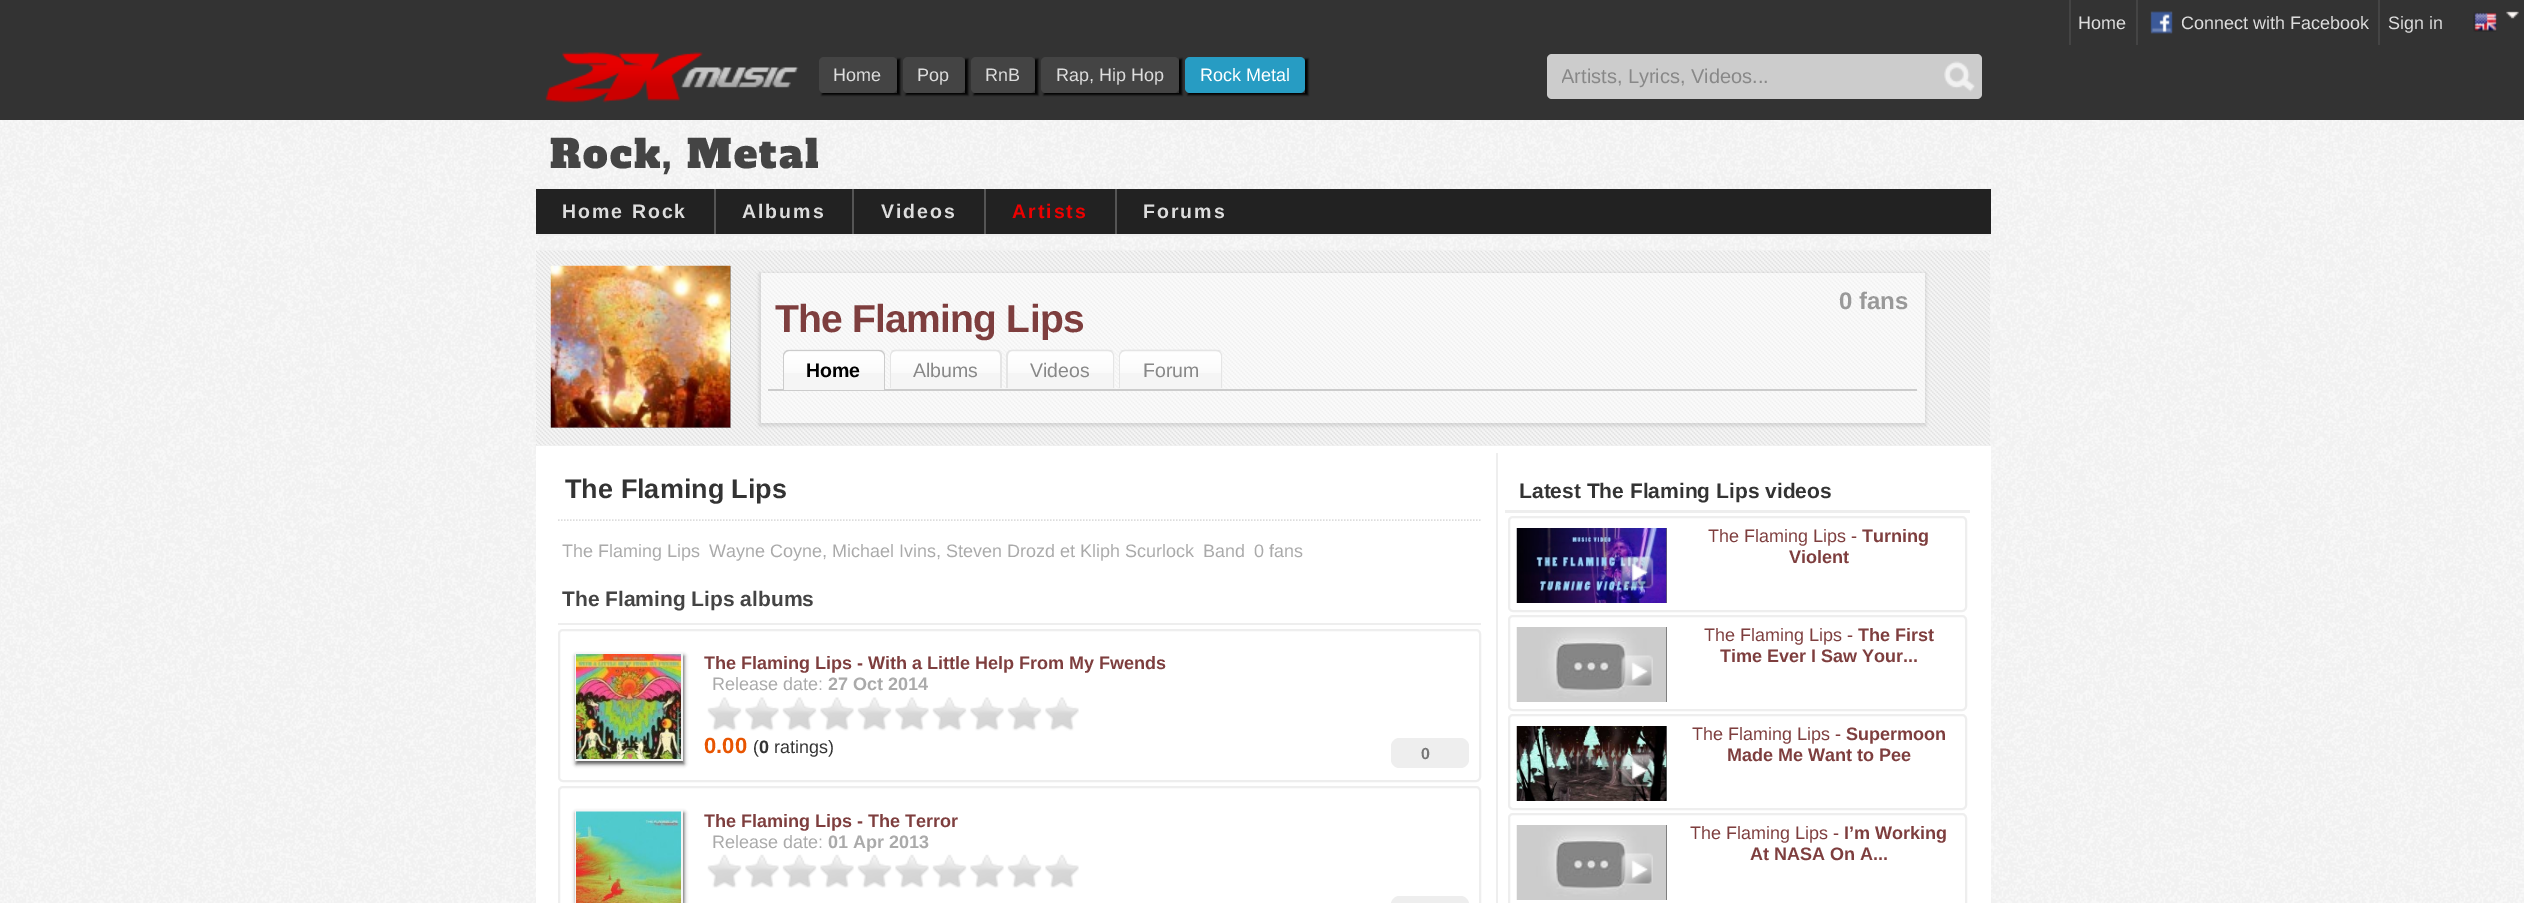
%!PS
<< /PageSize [2524 903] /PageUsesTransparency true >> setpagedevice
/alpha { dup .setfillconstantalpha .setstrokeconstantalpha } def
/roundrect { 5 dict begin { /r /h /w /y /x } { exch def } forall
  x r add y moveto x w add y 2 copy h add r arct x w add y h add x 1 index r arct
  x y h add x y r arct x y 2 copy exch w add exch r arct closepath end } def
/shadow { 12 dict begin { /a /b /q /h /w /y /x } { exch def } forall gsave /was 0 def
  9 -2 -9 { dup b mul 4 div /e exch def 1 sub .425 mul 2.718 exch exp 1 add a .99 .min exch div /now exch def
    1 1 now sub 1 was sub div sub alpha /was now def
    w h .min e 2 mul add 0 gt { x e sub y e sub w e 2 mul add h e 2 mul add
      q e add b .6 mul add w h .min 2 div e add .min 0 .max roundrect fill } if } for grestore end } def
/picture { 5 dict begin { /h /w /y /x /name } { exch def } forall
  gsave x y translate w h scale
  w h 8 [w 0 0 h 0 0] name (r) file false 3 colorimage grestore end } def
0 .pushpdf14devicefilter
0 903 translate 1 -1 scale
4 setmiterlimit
1 setgray
0 0 2524 903 rectfill
(img1.rgb) 0 120 2524 783 picture
0.2 setgray
0 0 2524 120 rectfill
0.267 setgray
2069 0 2 45 rectfill
/LiberationSans-Regular [18 0 0 -18 0 0] selectfont
0.867 setgray
2078 29 moveto (Home) show
0.267 setgray
2136 0 2 45 rectfill
(img2.rgb) 2150 11 23 23 picture
0.867 setgray
2181 29 moveto (Connect with Facebook) show
0.267 setgray
2378 0 2 45 rectfill
0.867 setgray
2388 29 moveto (Sign in) show
(img3.rgb) 2473 12 24 20 picture
(img4.rgb) 2506 11 13 8 picture
(img5.rgb) 545 52 254 51 picture
0.267 setgray
819 57 78 36 5 roundrect fill
gsave
newpath 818 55 moveto 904 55 lineto 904 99 lineto 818 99 lineto closepath 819 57 moveto 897 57 lineto 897 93 lineto 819 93 lineto closepath eoclip newpath
0 setgray
822 59 78 36 0 1 1 shadow
grestore
0.867 setgray
833 81 moveto (Home) show
0.267 setgray
903 57 62 36 5 roundrect fill
gsave
newpath 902 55 moveto 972 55 lineto 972 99 lineto 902 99 lineto closepath 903 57 moveto 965 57 lineto 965 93 lineto 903 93 lineto closepath eoclip newpath
0 setgray
906 59 62 36 0 1 1 shadow
grestore
0.867 setgray
917 81 moveto (Pop) show
0.267 setgray
971 57 64 36 5 roundrect fill
gsave
newpath 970 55 moveto 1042 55 lineto 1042 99 lineto 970 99 lineto closepath 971 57 moveto 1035 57 lineto 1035 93 lineto 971 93 lineto closepath eoclip newpath
0 setgray
974 59 64 36 0 1 1 shadow
grestore
0.867 setgray
985 81 moveto (RnB) show
0.267 setgray
1041 57 138 36 5 roundrect fill
gsave
newpath 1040 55 moveto 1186 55 lineto 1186 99 lineto 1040 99 lineto closepath 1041 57 moveto 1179 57 lineto 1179 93 lineto 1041 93 lineto closepath eoclip newpath
0 setgray
1044 59 138 36 0 1 1 shadow
grestore
0.867 setgray
1056 81 moveto (Rap, Hip Hop) show
0.153 0.612 0.765 setrgbcolor
1185 57 120 36 5 roundrect fill
gsave
newpath 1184 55 moveto 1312 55 lineto 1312 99 lineto 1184 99 lineto closepath 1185 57 moveto 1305 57 lineto 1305 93 lineto 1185 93 lineto closepath eoclip newpath
0 setgray
1188 59 120 36 0 1 1 shadow
grestore
1 setgray
1200 81 moveto (Rock Metal) show
0.8 setgray
1547 54 435 45 5 roundrect fill
gsave
1562 54 375 45 rectclip
/LiberationSans-Regular [20 0 0 -20 0 0] selectfont
0.533 setgray
1561 83 moveto (Artists, Lyrics, Videos...) show
grestore
(img6.rgb) 1944 61 31 31 picture
/AlfaSlabOne-Regular [39 0 0 -39 0 0] selectfont
0.267 setgray
550 168 moveto 2 0 (Rock, Metal) ashow
0.133 setgray
536 189 1455 45 rectfill
0.933 setgray
536 234 1455 2 rectfill
/LiberationSans-Bold [19.5 0 0 -19.5 0 0] selectfont
0.867 setgray
562 218 moveto 2 0 (Home Rock) ashow
0.333 setgray
714 189 2 45 rectfill
0.867 setgray
742 218 moveto 2 0 (Albums) ashow
0.333 setgray
852 189 2 45 rectfill
0.867 setgray
881 218 moveto 2 0 (Videos) ashow
0.333 setgray
984 189 2 45 rectfill
0.933 0 0 setrgbcolor
1012 218 moveto 2 0 (Artists) ashow
0.333 setgray
1115 189 2 45 rectfill
0.867 setgray
1143 218 moveto 2 0 (Forums) ashow
(img7.rgb) 536 250 1454 196 picture
0.3 alpha
0 setgray
551 266 180 162 rectfill
1 alpha
(img8.rgb) 550 265 181 163 picture
gsave
newpath 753 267 moveto 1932 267 lineto 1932 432 lineto 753 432 lineto closepath 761 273 moveto 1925 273 lineto 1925 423 lineto 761 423 lineto closepath eoclip newpath
759 273 1167 153 0 1.5 0.1 shadow
grestore
0.5 alpha
1 setgray
761 273 1164 150 rectfill
/LiberationSans-Bold [24 0 0 -24 0 0] selectfont
1 alpha
0.6 setgray
1839 309 moveto (0 fans) show
/LiberationSans-Bold [39 0 0 -39 0 0] selectfont
0.494 0.243 0.243 setrgbcolor
775 332 moveto -0.75 0 (The Flaming Lips) ashow
0.8 setgray
768 389 1149 2 rectfill
0.961 setgray
newpath 789 350 moveto 879 350 lineto 882.5 350 885 352.5 885 356 curveto 885 390 lineto 783 390 lineto 783 356 lineto 783 352.5 785.5 350 789 350 curveto closepath fill
(img9.rgb) 783 349 102 24 picture
0.8 setgray
newpath 789 350 moveto 879 350 lineto 882 350 885 352 885 356 curveto 885 390 lineto 783 390 lineto 783 356 lineto 783 352 786 350 789 350 curveto closepath 789 351 moveto 879 351 lineto 881 351 884 353 884 356 curveto 884 390 lineto 784 390 lineto 784 356 lineto 784 353 787 351 789 351 curveto closepath eofill
/LiberationSans-Bold [19.5 0 0 -19.5 0 0] selectfont
0 setgray
806 377 moveto (Home) show
0.961 setgray
newpath 896 350 moveto 996 350 lineto 999.5 350 1002 352.5 1002 356 curveto 1002 389 lineto 890 389 lineto 890 356 lineto 890 352.5 892.5 350 896 350 curveto closepath fill
(img10.rgb) 890 349 112 24 picture
0.898 setgray
newpath 896 350 moveto 996 350 lineto 999 350 1002 352 1002 356 curveto 1002 388 lineto 890 388 lineto 890 356 lineto 890 352 892 350 896 350 curveto closepath 896 351 moveto 996 351 lineto 998 351 1000 353 1000 356 curveto 1000 388 lineto 891 388 lineto 891 356 lineto 891 353 893 351 896 351 curveto closepath eofill
/LiberationSans-Regular [19.5 0 0 -19.5 0 0] selectfont
0.533 setgray
913 377 moveto (Albums) show
0.961 setgray
newpath 1013 350 moveto 1109 350 lineto 1112.5 350 1115 352.5 1115 356 curveto 1115 389 lineto 1007 389 lineto 1007 356 lineto 1007 352.5 1009.5 350 1013 350 curveto closepath fill
(img11.rgb) 1007 349 107 24 picture
0.898 setgray
newpath 1012 350 moveto 1108 350 lineto 1112 350 1114 352 1114 356 curveto 1114 388 lineto 1006 388 lineto 1006 356 lineto 1006 352 1009 350 1012 350 curveto closepath 1012 351 moveto 1108 351 lineto 1111 351 1113 353 1113 356 curveto 1113 388 lineto 1008 388 lineto 1008 356 lineto 1008 353 1010 351 1012 351 curveto closepath eofill
0.533 setgray
1030 377 moveto (Videos) show
0.961 setgray
newpath 1125 350 moveto 1217 350 lineto 1220.5 350 1223 352.5 1223 356 curveto 1223 389 lineto 1119 389 lineto 1119 356 lineto 1119 352.5 1121.5 350 1125 350 curveto closepath fill
(img12.rgb) 1119 349 103 24 picture
0.898 setgray
newpath 1125 350 moveto 1216 350 lineto 1220 350 1222 352 1222 356 curveto 1222 388 lineto 1119 388 lineto 1119 356 lineto 1119 352 1122 350 1125 350 curveto closepath 1125 351 moveto 1216 351 lineto 1219 351 1221 353 1221 356 curveto 1221 388 lineto 1120 388 lineto 1120 356 lineto 1120 353 1123 351 1125 351 curveto closepath eofill
0.533 setgray
1143 377 moveto (Forum) show
1 setgray
536 446 1455 457 rectfill
0.933 setgray
1496 453 2 450 rectfill
0.867 setgray
1.5 setlinewidth
[1.5 1.5] 0 setdash
newpath 558 520 moveto 1480.5 520 lineto stroke
/LiberationSans-Bold [27 0 0 -27 0 0] selectfont
0.2 setgray
565 498 moveto (The Flaming Lips) show
/LiberationSans-Regular [18 0 0 -18 0 0] selectfont
0.667 setgray
562 557 moveto (The Flaming Lips) show
709 557 moveto (Wayne Coyne, Michael Ivins, Steven Drozd et Kliph Scurlock) show
1203 557 moveto (Band) show
1254 557 moveto (0 fans) show
0.933 setgray
558 623 923 2 rectfill
/LiberationSans-Bold [21 0 0 -21 0 0] selectfont
0.267 setgray
562 606 moveto (The Flaming Lips albums) show
0.933 setgray
2 setlinewidth
[] 0 setdash
559 630 921 151 4 roundrect stroke
0.333 setgray
576 656 108 108 0 2 1 shadow
0.961 setgray
575 653 108 108 rectfill
(img13.rgb) 576 654 105 105 picture
/LiberationSans-Bold [18 0 0 -18 0 0] selectfont
0.494 0.243 0.243 setrgbcolor
704 669 moveto (The Flaming Lips - With a Little Help From My Fwends) show
/LiberationSans-Regular [18 0 0 -18 0 0] selectfont
0.667 setgray
712 690 moveto (Release date:) show
/LiberationSans-Bold [18 0 0 -18 0 0] selectfont
828 690 moveto (27 Oct 2014) show
(img14.rgb) 707 697 372 34 picture
/LiberationSans-Bold [22 0 0 -22 0 0] selectfont
0.91 0.333 0.004 setrgbcolor
704 753 moveto (0.00) show
/LiberationSans-Regular [18 0 0 -18 0 0] selectfont
0.2 setgray
753 753 moveto (\() show
/LiberationSans-Bold [18 0 0 -18 0 0] selectfont
759 753 moveto (0) show
/LiberationSans-Regular [18 0 0 -18 0 0] selectfont
774 753 moveto (ratings\)) show
0.933 setgray
newpath 1399 738 moveto 1461 738 lineto 1465 738 1469 742 1469 746 curveto 1469 760 lineto 1469 764 1465 768 1461 768 curveto 1399 768 lineto 1395 768 1391 764 1391 760 curveto 1391 746 lineto 1391 742 1395 738 1399 738 curveto closepath fill
/LiberationSans-Bold [16 0 0 -16 0 0] selectfont
0.467 setgray
1421 759 moveto (0) show
0.933 setgray
559 787 921 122 4 roundrect stroke
0.333 setgray
576 813 108 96 0 2 1 shadow
0.961 setgray
575 810 108 93 rectfill
(img15.rgb) 576 811 105 92 picture
/LiberationSans-Bold [18 0 0 -18 0 0] selectfont
0.494 0.243 0.243 setrgbcolor
704 827 moveto (The Flaming Lips - The Terror) show
/LiberationSans-Regular [18 0 0 -18 0 0] selectfont
0.667 setgray
712 848 moveto (Release date:) show
/LiberationSans-Bold [18 0 0 -18 0 0] selectfont
828 848 moveto (01 Apr 2013) show
(img16.rgb) 707 854 372 34 picture
0.933 setgray
newpath 1399 896 moveto 1461 896 lineto 1465 896 1469 900 1469 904 curveto 1469 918 lineto 1469 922 1465 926 1461 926 curveto 1399 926 lineto 1395 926 1391 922 1391 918 curveto 1391 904 lineto 1391 900 1395 896 1399 896 curveto closepath fill
1505 510 465 3 rectfill
/LiberationSans-Bold [21 0 0 -21 0 0] selectfont
0.2 setgray
1519 498 moveto (Latest The Flaming Lips videos) show
0.933 setgray
1509 517 457 94 4 roundrect stroke
0.4 setgray
1666 528 1 75 rectfill
(img17.rgb) 1516 528 151 75 picture
(img18.rgb) 1621 556 33 33 picture
/LiberationSans-Regular [18 0 0 -18 0 0] selectfont
0.494 0.243 0.243 setrgbcolor
1708 542 moveto (The Flaming Lips -) show
/LiberationSans-Bold [18 0 0 -18 0 0] selectfont
1862 542 moveto (Turning) show
1789 563 moveto (Violent) show
0.933 setgray
1509 616 457 94 4 roundrect stroke
0.4 setgray
1666 627 1 75 rectfill
(img19.rgb) 1516 627 151 75 picture
(img20.rgb) 1621 655 32 32 picture
/LiberationSans-Regular [18 0 0 -18 0 0] selectfont
0.494 0.243 0.243 setrgbcolor
1704 641 moveto (The Flaming Lips -) show
/LiberationSans-Bold [18 0 0 -18 0 0] selectfont
1858 641 moveto (The First) show
1720 662 moveto (Time Ever I Saw Your...) show
0.933 setgray
1509 715 457 94 4 roundrect stroke
0.4 setgray
1666 726 1 75 rectfill
(img21.rgb) 1516 726 151 75 picture
(img22.rgb) 1621 754 33 33 picture
/LiberationSans-Regular [18 0 0 -18 0 0] selectfont
0.494 0.243 0.243 setrgbcolor
1692 740 moveto (The Flaming Lips -) show
/LiberationSans-Bold [18 0 0 -18 0 0] selectfont
1846 740 moveto (Supermoon) show
1727 761 moveto (Made Me Want to Pee) show
0.933 setgray
1509 814 457 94 4 roundrect stroke
0.4 setgray
1666 825 1 75 rectfill
(img23.rgb) 1516 825 151 75 picture
(img24.rgb) 1621 853 32 32 picture
/LiberationSans-Regular [18 0 0 -18 0 0] selectfont
0.494 0.243 0.243 setrgbcolor
1690 839 moveto (The Flaming Lips -) show
/LiberationSans-Bold [18 0 0 -18 0 0] selectfont
1844 839 moveto (I’m Working) show
1750 860 moveto (At NASA On A...) show
.poppdf14devicefilter showpage
